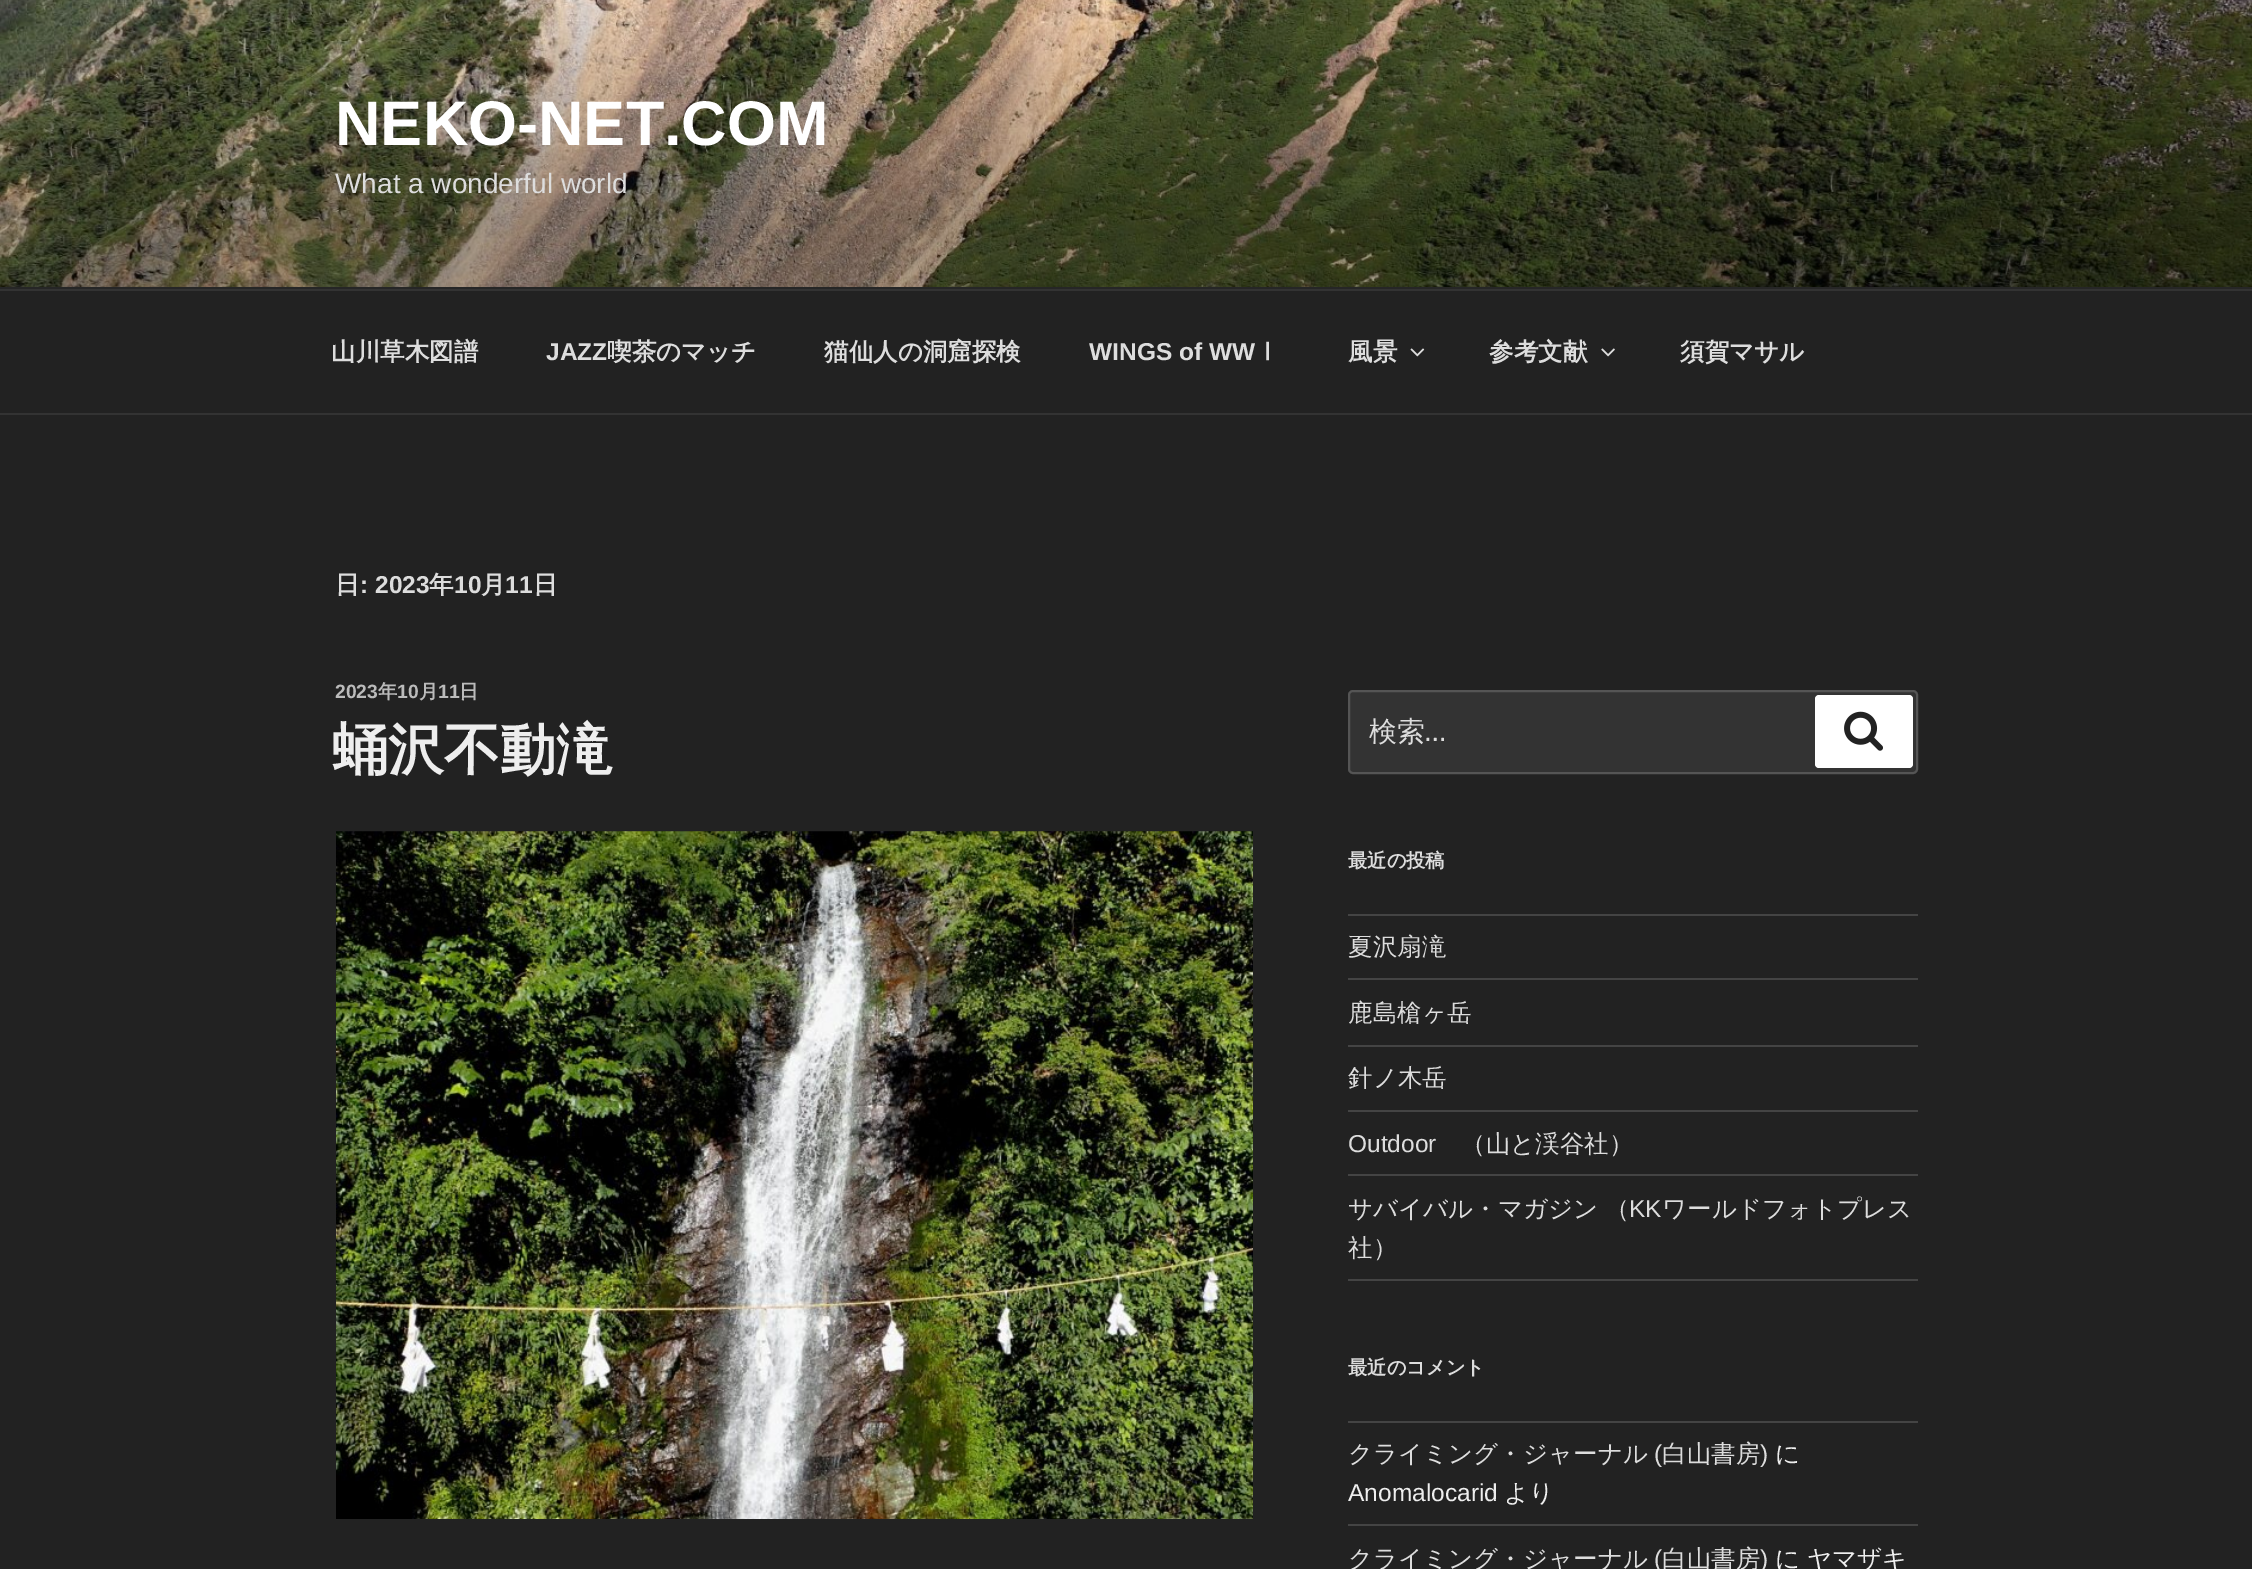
%!PS
<< /PageSize [2252 1569] >> setpagedevice
/roundrect { 5 dict begin { /r /h /w /y /x } { exch def } forall
  x r add y moveto x w add y 2 copy h add r arct x w add y h add x 1 index r arct
  x y h add x y r arct x y 2 copy exch w add exch r arct closepath end } def
/picture { 5 dict begin { /h /w /y /x /name } { exch def } forall
  gsave x y translate w h scale
  w h 8 [w 0 0 h 0 0] name (r) file false 3 colorimage grestore end } def
0 1569 translate 1 -1 scale
4 setmiterlimit
0.133 setgray
0 0 2252 1569 rectfill
0.149 setgray
0 287 2252 2 rectfill
(img1.rgb) 0 0 2252 287 picture
/LiberationSans-Bold [63 0 0 -63 0 0] selectfont
1 setgray
335 145 moveto (NEKO-NET.COM) show
/LiberationSans-Regular [28 0 0 -28 0 0] selectfont
0.867 setgray
335 193 moveto (What a wonderful world) show
0.2 setgray
0 289 2252 2 rectfill
0 413 2252 2 rectfill
/WenQuanYiZenHei-Bold [24.5 0 0 -24.5 0 0] selectfont
0.867 setgray
331 360 moveto (山川草木図譜) show
/LiberationSans-Bold [24.5 0 0 -24.5 0 0] selectfont
546 360 moveto (JAZZ) show
/WenQuanYiZenHei-Bold [24.5 0 0 -24.5 0 0] selectfont
607 360 moveto (喫茶のマッチ) show
824 360 moveto (猫仙人の洞窟探検) show
/LiberationSans-Bold [24.5 0 0 -24.5 0 0] selectfont
1089 360 moveto (WINGS of WW) show
/WenQuanYiZenHei-Bold [24.5 0 0 -24.5 0 0] selectfont
1255 360 moveto (Ⅰ) show
1348 360 moveto (風景) show
(img2.rgb) 1410 348 15 9 picture
1489 360 moveto (参考文献) show
(img3.rgb) 1601 348 14 9 picture
1680 360 moveto (須賀マサル) show
335 593 moveto (日) show
/LiberationSans-Bold [24.5 0 0 -24.5 0 0] selectfont
360 593 moveto (: 2023) show
/WenQuanYiZenHei-Bold [24.5 0 0 -24.5 0 0] selectfont
429 593 moveto (年) show
/LiberationSans-Bold [24.5 0 0 -24.5 0 0] selectfont
454 593 moveto (10) show
/WenQuanYiZenHei-Bold [24.5 0 0 -24.5 0 0] selectfont
481 593 moveto (月) show
/LiberationSans-Bold [24.5 0 0 -24.5 0 0] selectfont
505 593 moveto (11) show
/WenQuanYiZenHei-Bold [24.5 0 0 -24.5 0 0] selectfont
533 593 moveto (日) show
/LiberationSans-Bold [19.25 0 0 -19.25 0 0] selectfont
0.733 setgray
335 698 moveto (2023) show
/WenQuanYiZenHei-Bold [19.25 0 0 -19.25 0 0] selectfont
378 698 moveto (年) show
/LiberationSans-Bold [19.25 0 0 -19.25 0 0] selectfont
397 698 moveto (10) show
/WenQuanYiZenHei-Bold [19.25 0 0 -19.25 0 0] selectfont
419 698 moveto (月) show
/LiberationSans-Bold [19.25 0 0 -19.25 0 0] selectfont
438 698 moveto (11) show
/WenQuanYiZenHei-Bold [19.25 0 0 -19.25 0 0] selectfont
459 698 moveto (日) show
/WenQuanYiZenHei-Bold [56 0 0 -56 0 0] selectfont
0.933 setgray
332 769 moveto (蛹沢不動滝) show
(img4.rgb) 336 831 917 688 picture
0.2 setgray
1349 691 568 82 4 roundrect gsave fill grestore
0.333 setgray
2 setlinewidth
stroke
/WenQuanYiZenHei-Medium [28 0 0 -28 0 0] selectfont
0.867 setgray
1369 741 moveto (検索) show
/LibreFranklin-Regular [28 0 0 -28 0 0] selectfont
1425 741 moveto (…) show
1 setgray
1815 695 98 73 4 roundrect fill
(img5.rgb) 1844 711 39 40 picture
/WenQuanYiZenHei-Bold [19.25 0 0 -19.25 0 0] selectfont
0.867 setgray
1348 867 moveto (最近の投稿) show
0.267 setgray
1348 914 570 2 rectfill
1348 978 570 2 rectfill
/WenQuanYiZenHei-Medium [24.5 0 0 -24.5 0 0] selectfont
0.867 setgray
1348 955 moveto (夏沢扇滝) show
0.267 setgray
1348 1045 570 2 rectfill
0.867 setgray
1348 1021 moveto (鹿島槍ヶ岳) show
0.267 setgray
1348 1110 570 2 rectfill
0.867 setgray
1348 1086 moveto (針ノ木岳) show
0.267 setgray
1348 1174 570 2 rectfill
/LiberationSans-Regular [24.5 0 0 -24.5 0 0] selectfont
0.867 setgray
1348 1152 moveto (Outdoor) show
/WenQuanYiZenHei-Medium [24.5 0 0 -24.5 0 0] selectfont
1461 1152 moveto (（山と渓谷社）) show
0.267 setgray
1348 1279 570 2 rectfill
0.867 setgray
1348 1217 moveto -1 0 32 (サバイバル・マガジン （) widthshow
/LiberationSans-Regular [24.5 0 0 -24.5 0 0] selectfont
1629 1217 moveto (KK) show
/WenQuanYiZenHei-Medium [24.5 0 0 -24.5 0 0] selectfont
1662 1217 moveto (ワールドフォトプレス) show
1348 1256 moveto (社）) show
/WenQuanYiZenHei-Bold [19.25 0 0 -19.25 0 0] selectfont
1348 1374 moveto (最近のコメント) show
0.267 setgray
1348 1421 570 2 rectfill
1348 1524 570 2 rectfill
/WenQuanYiZenHei-Medium [24.5 0 0 -24.5 0 0] selectfont
0.867 setgray
1348 1462 moveto (クライミング・ジャーナル) show
/LiberationSans-Regular [24.5 0 0 -24.5 0 0] selectfont
1654 1462 moveto (\() show
/WenQuanYiZenHei-Medium [24.5 0 0 -24.5 0 0] selectfont
1662 1462 moveto (白山書房) show
/LiberationSans-Regular [24.5 0 0 -24.5 0 0] selectfont
1760 1462 moveto (\)) show
/WenQuanYiZenHei-Medium [24.5 0 0 -24.5 0 0] selectfont
0.933 setgray
1775 1462 moveto (に) show
/LiberationSans-Regular [24.5 0 0 -24.5 0 0] selectfont
1348 1501 moveto (Anomalocarid) show
/WenQuanYiZenHei-Medium [24.5 0 0 -24.5 0 0] selectfont
1504 1501 moveto (より) show
0.867 setgray
1348 1567 moveto (クライミング・ジャーナル) show
/LiberationSans-Regular [24.5 0 0 -24.5 0 0] selectfont
1654 1567 moveto (\() show
/WenQuanYiZenHei-Medium [24.5 0 0 -24.5 0 0] selectfont
1662 1567 moveto (白山書房) show
/LiberationSans-Regular [24.5 0 0 -24.5 0 0] selectfont
1760 1567 moveto (\)) show
/WenQuanYiZenHei-Medium [24.5 0 0 -24.5 0 0] selectfont
0.933 setgray
1775 1567 moveto (に) show
1807 1567 moveto (ヤマザキ) show
showpage
